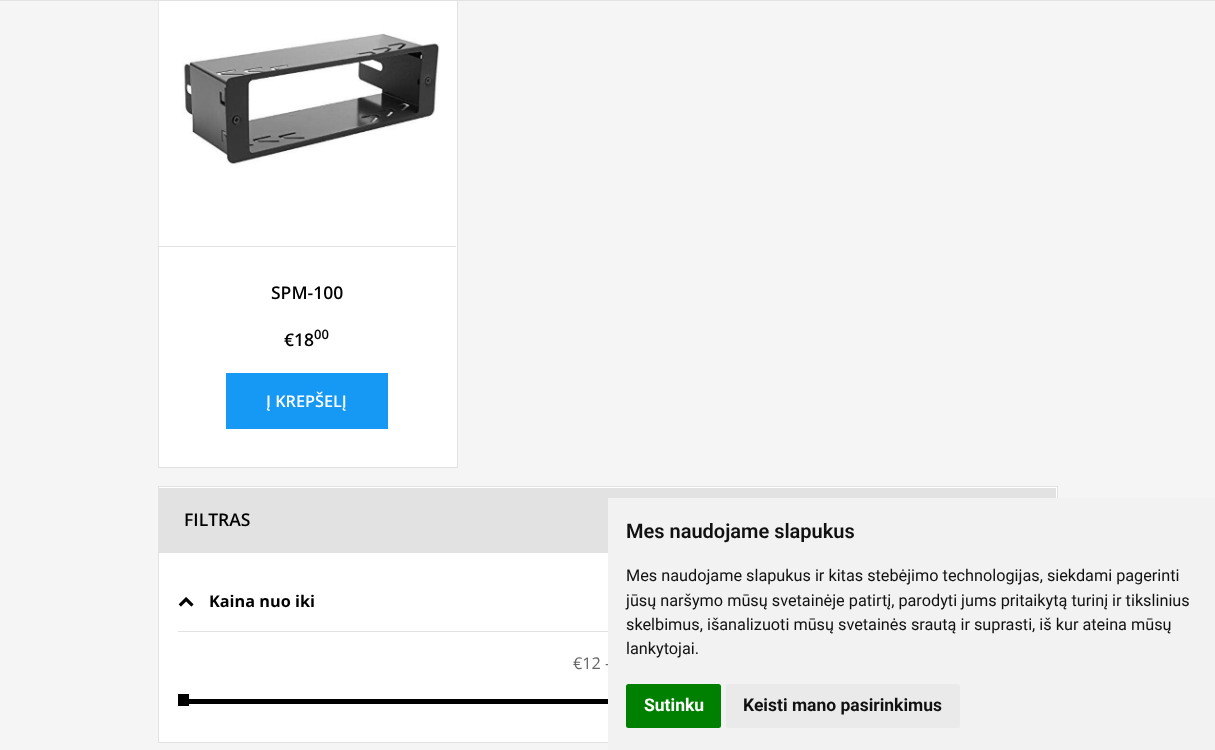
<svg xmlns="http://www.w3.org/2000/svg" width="1215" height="750">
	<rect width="100%" height="100%" fill="#F5F5F5" />
	<rect x="159" y="1" width="298" height="466" fill="#FFFFFF" />
	<rect x="158.5" y="-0.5" width="299" height="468" fill="none" stroke="#E2E2E2" />
	<rect x="0" y="0" width="1215" height="1" fill="#E2E2E2" />
	<rect x="159" y="246" width="297" height="1" fill="#E2E2E2" />
	<image x="158" y="1" width="282" height="245" href="assets/img1.png" />
	<g font-family="Open Sans" font-size="17.5" font-weight="600" fill="#000000">
		<text x="271" y="299">SPM-100</text>
		<text x="284" y="346">€18</text>
	</g>
	<text x="314" y="339" font-family="Open Sans" font-size="13" font-weight="600" fill="#000000">00</text>
	<rect x="226" y="373" width="162" height="56" fill="#1698F5" />
	<text x="266" y="407" font-family="Open Sans" font-size="16.25" font-weight="600" fill="#FFFFFF">Į KREPŠELĮ</text>
	<rect x="158.5" y="486.5" width="899" height="256" fill="#FFFFFF" stroke="#E2E2E2" />
	<rect x="159" y="488" width="897" height="65" fill="#E2E2E2" />
	<text x="184" y="526" font-family="Open Sans" font-size="17.5" font-weight="600" fill="#000000">FILTRAS</text>
	<rect x="178" y="631" width="430" height="1" fill="#E2E2E2" />
	<text x="178" y="609" font-family="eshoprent" font-size="16.25" fill="#000000">1</text>
	<text x="209" y="607" font-family="Open Sans" font-size="16.25" font-weight="700" fill="#000000">Kaina nuo iki</text>
	<text x="573" y="669" font-family="Open Sans" font-size="16.25" fill="#666666">€12 -</text>
	<rect x="178" y="694" width="11" height="12" fill="#000000" />
	<rect x="189" y="699" width="419" height="5" fill="#000000" />
	<rect x="608" y="498" width="607" height="252" fill="#F2F2F2" />
	<text x="626" y="538" font-family="Roboto" font-size="20" font-weight="600" fill="#111111">Mes naudojame slapukus</text>
	<g font-family="Roboto" font-size="16.25" fill="#111111">
		<text x="626" y="581">Mes naudojame slapukus ir kitas stebėjimo technologijas, siekdami pagerinti</text>
		<text x="626" y="606">jūsų naršymo mūsų svetainėje patirtį, parodyti jums pritaikytą turinį ir tikslinius</text>
		<text x="626" y="630">skelbimus, išanalizuoti mūsų svetainės srautą ir suprasti, iš kur ateina mūsų</text>
		<text x="626" y="654">lankytojai.</text>
	</g>
	<rect x="626" y="684" width="95" height="44" rx="2.5" fill="#008000" />
	<text x="644" y="711" font-family="Roboto" font-size="17.5" font-weight="700" fill="#FFFFFF">Sutinku</text>
	<rect x="726" y="684" width="234" height="44" rx="2.5" fill="#EAEAEA" />
	<text x="743" y="711" font-family="Roboto" font-size="17.5" font-weight="700" fill="#111111">Keisti mano pasirinkimus</text>
</svg>
